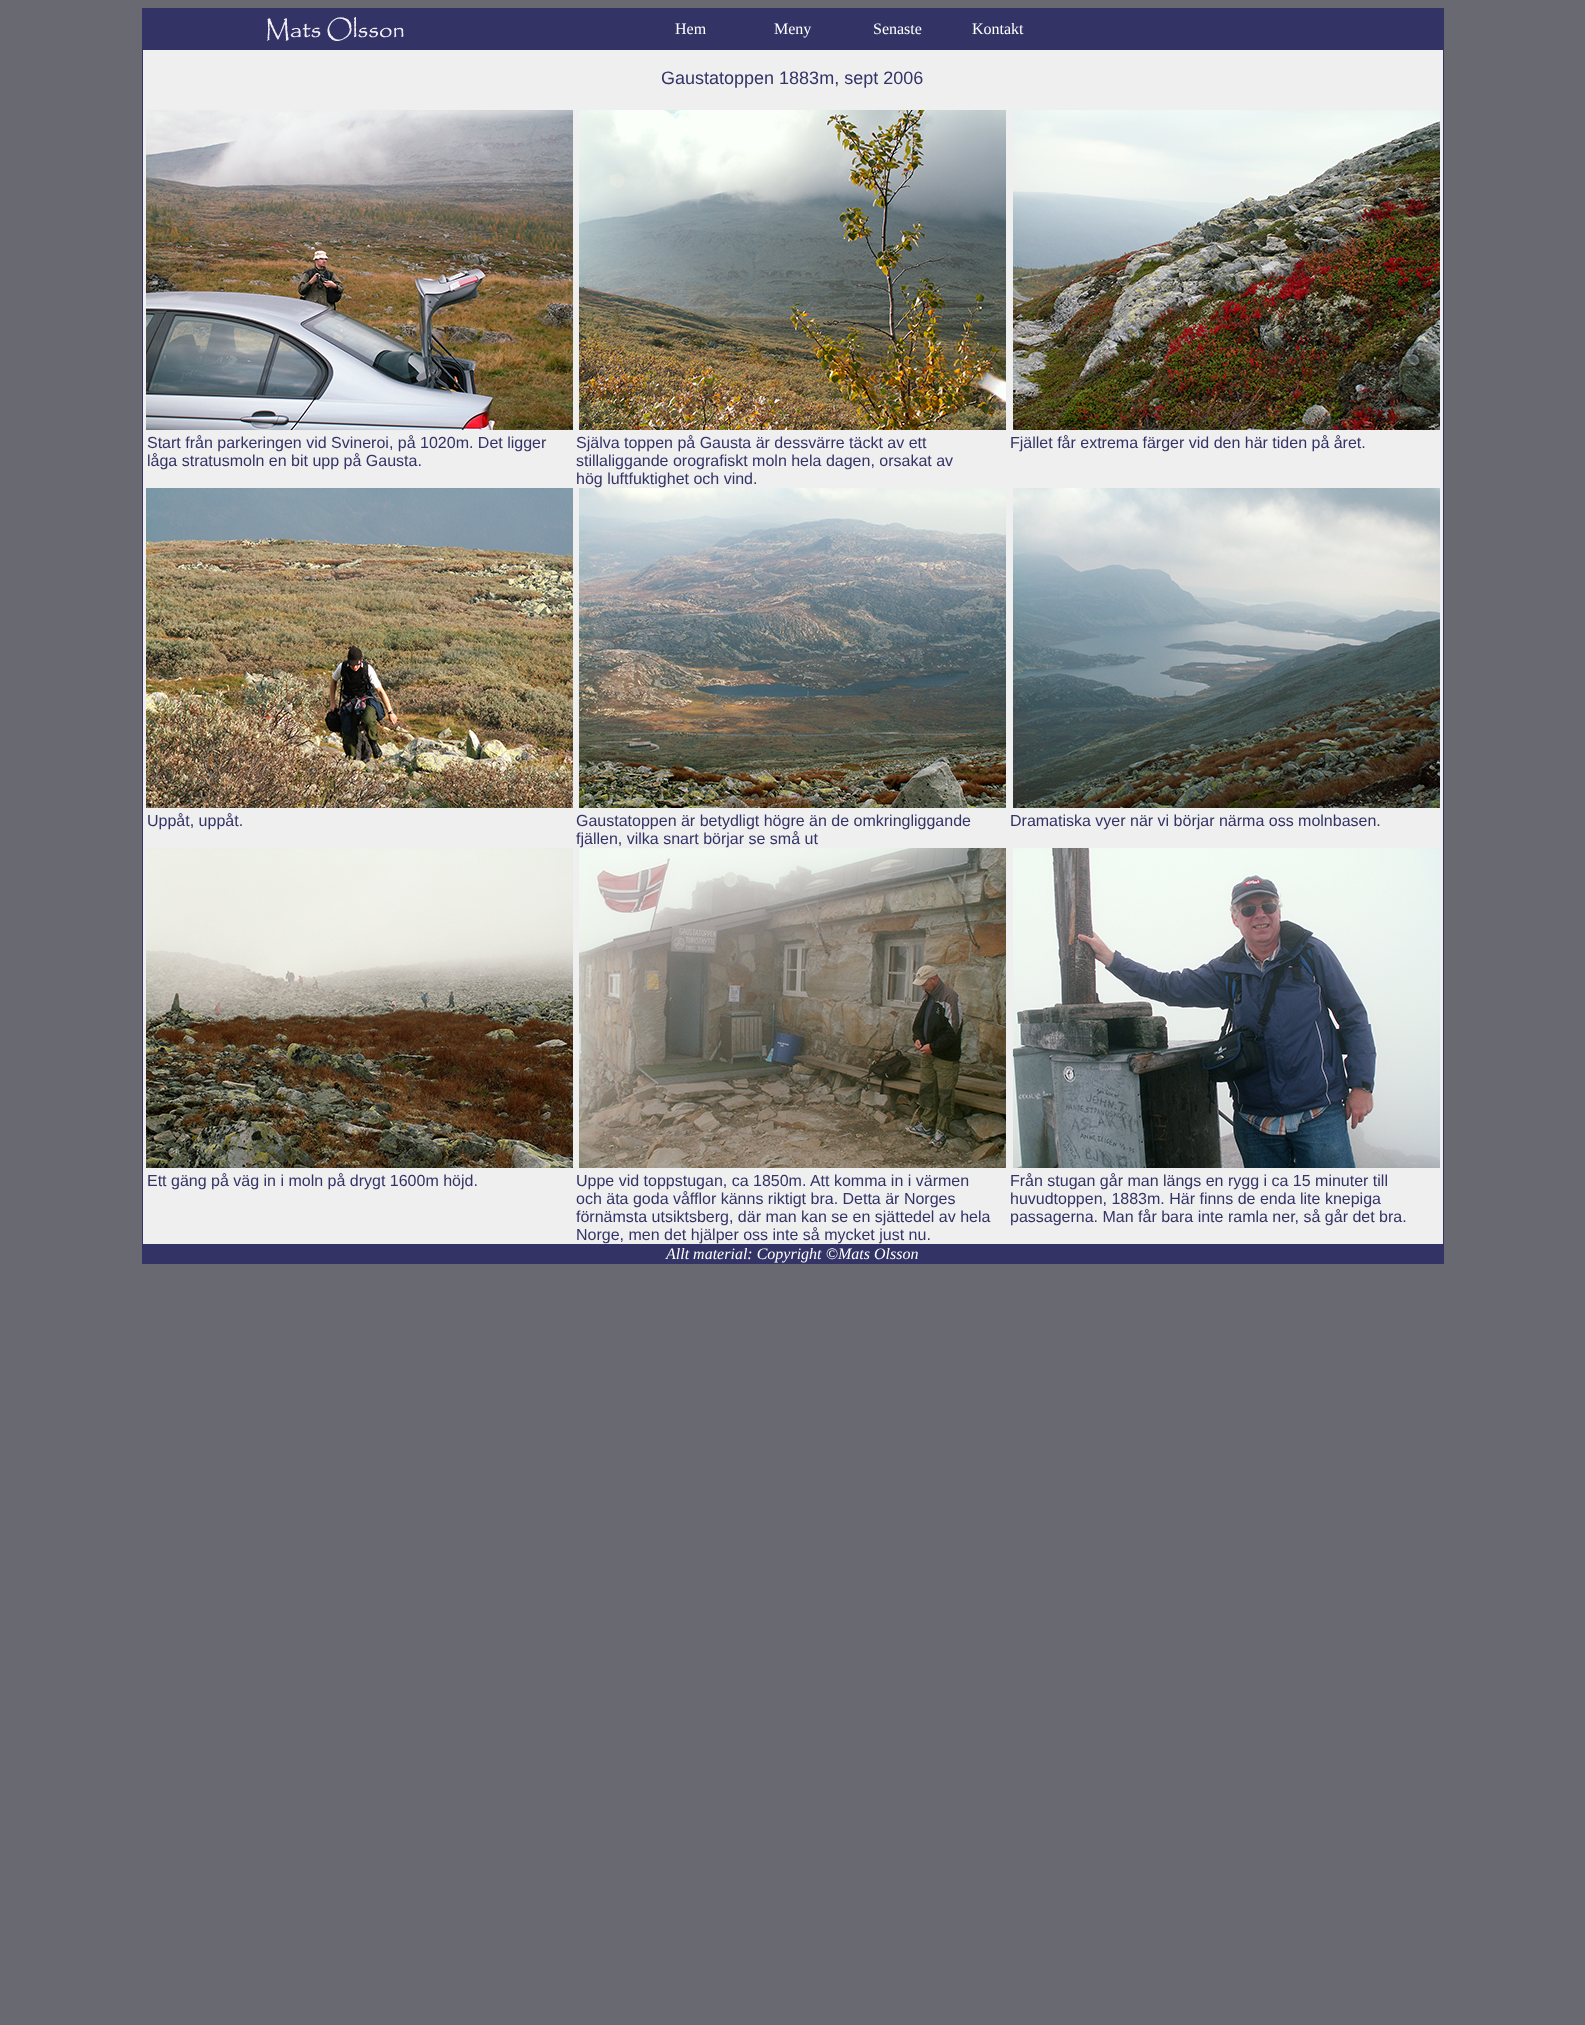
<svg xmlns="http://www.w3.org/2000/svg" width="1585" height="2025">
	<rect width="100%" height="100%" fill="#696971" />
	<rect x="142" y="8" width="1302" height="1256" fill="#333366" />
	<image x="266" y="17" width="138" height="25" href="assets/img1.png" />
	<g font-family="Liberation Serif" font-size="16" fill="#FFFFFF">
		<text x="675" y="34">Hem</text>
		<text x="774" y="34">Meny</text>
		<text x="873" y="34">Senaste</text>
		<text x="972" y="34">Kontakt</text>
	</g>
	<rect x="143" y="50" width="1300" height="1194" fill="#EFEFEF" />
	<text x="661" y="84" font-family="Liberation Sans" font-size="18" fill="#333366">Gaustatoppen 1883m, sept 2006</text>
	<image x="146" y="110" width="427" height="320" href="assets/img2.png" />
	<image x="579" y="110" width="427" height="320" href="assets/img3.png" />
	<image x="1013" y="110" width="427" height="320" href="assets/img4.png" />
	<g font-family="Liberation Sans" font-size="16" fill="#333366">
		<text x="147" y="448">Start från parkeringen vid Svineroi, på 1020m. Det ligger</text>
		<text x="147" y="466">låga stratusmoln en bit upp på Gausta.</text>
		<text x="576" y="448">Själva toppen på Gausta är dessvärre täckt av ett</text>
		<text x="576" y="466">stillaliggande orografiskt moln hela dagen, orsakat av</text>
		<text x="576" y="484">hög luftfuktighet och vind.</text>
		<text x="1010" y="448">Fjället får extrema färger vid den här tiden på året.</text>
	</g>
	<image x="146" y="488" width="427" height="320" href="assets/img5.png" />
	<image x="579" y="488" width="427" height="320" href="assets/img6.png" />
	<image x="1013" y="488" width="427" height="320" href="assets/img7.png" />
	<g font-family="Liberation Sans" font-size="16" fill="#333366">
		<text x="147" y="826">Uppåt, uppåt.</text>
		<text x="576" y="826">Gaustatoppen är betydligt högre än de omkringliggande</text>
		<text x="576" y="844">fjällen, vilka snart börjar se små ut</text>
		<text x="1010" y="826">Dramatiska vyer när vi börjar närma oss molnbasen.</text>
	</g>
	<image x="146" y="848" width="427" height="320" href="assets/img8.png" />
	<image x="579" y="848" width="427" height="320" href="assets/img9.png" />
	<image x="1013" y="848" width="427" height="320" href="assets/img10.png" />
	<g font-family="Liberation Sans" font-size="16" fill="#333366">
		<text x="147" y="1186">Ett gäng på väg in i moln på drygt 1600m höjd.</text>
		<text x="576" y="1186">Uppe vid toppstugan, ca 1850m. Att komma in i värmen</text>
		<text x="576" y="1204">och äta goda våfflor känns riktigt bra. Detta är Norges</text>
		<text x="576" y="1222">förnämsta utsiktsberg, där man kan se en sjättedel av hela</text>
		<text x="576" y="1240">Norge, men det hjälper oss inte så mycket just nu.</text>
		<text x="1010" y="1186">Från stugan går man längs en rygg i ca 15 minuter till</text>
		<text x="1010" y="1204">huvudtoppen, 1883m. Här finns de enda lite knepiga</text>
		<text x="1010" y="1222">passagerna. Man får bara inte ramla ner, så går det bra.</text>
	</g>
	<text x="666" y="1259" font-family="Liberation Serif" font-size="16" font-style="italic" fill="#FFFFFF">Allt material: Copyright</text>
	<text x="826" y="1259" font-family="Liberation Serif" font-size="16" fill="#FFFFFF">©</text>
	<text x="838" y="1259" font-family="Liberation Serif" font-size="16" font-style="italic" fill="#FFFFFF">Mats Olsson</text>
</svg>
